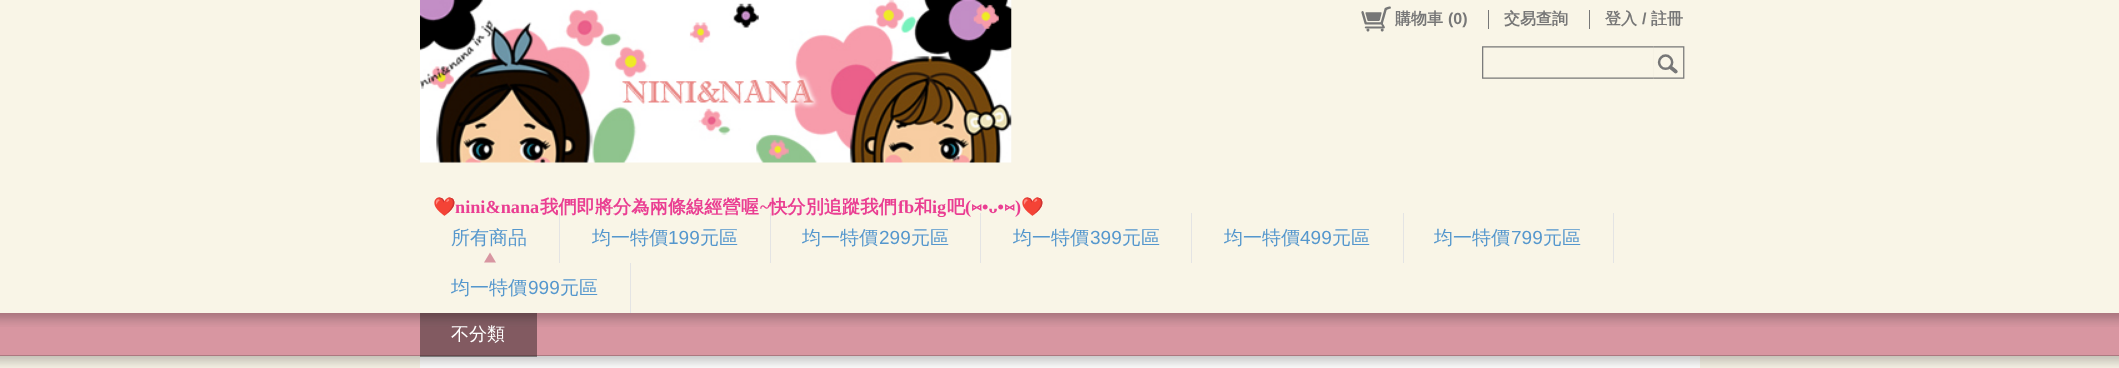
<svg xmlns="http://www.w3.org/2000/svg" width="2119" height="368">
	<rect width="100%" height="100%" fill="#F9F5E7" />
	<image x="420" y="0" width="592" height="163" href="assets/img1.png" />
	<image x="1361" y="6" width="30" height="26" href="assets/img2.png" />
	<text x="1395" y="24" font-family="WenQuanYi Zen Hei" font-size="16" font-weight="700" fill="#777777">購物車</text>
	<text x="1448" y="24" font-family="Liberation Sans" font-size="16" font-weight="700" fill="#777777">(0)</text>
	<rect x="1488" y="10" width="1" height="19" fill="#777777" />
	<text x="1504" y="24" font-family="WenQuanYi Zen Hei" font-size="16" font-weight="700" fill="#777777">交易查詢</text>
	<rect x="1589" y="10" width="1" height="19" fill="#777777" />
	<text x="1605" y="24" font-family="WenQuanYi Zen Hei" font-size="16" font-weight="700" fill="#777777">登入</text>
	<text x="1642" y="24" font-family="Liberation Sans" font-size="16" font-weight="700" fill="#777777">/</text>
	<text x="1651" y="24" font-family="WenQuanYi Zen Hei" font-size="16" font-weight="700" fill="#777777">註冊</text>
	<image x="1653" y="46" width="32" height="33" href="assets/img4.png" />
	<image x="1482" y="46" width="172" height="33" href="assets/img3.png" />
	<text x="433" y="213" font-family="Noto Color Emoji" font-size="18.25" font-weight="700" fill="#EA3E92">❤️</text>
	<text x="455" y="213" font-family="Liberation Serif" font-size="18.25" font-weight="700" fill="#EA3E92">nini&amp;nana</text>
	<rect x="559" y="213" width="1" height="50" fill="#E4E4E4" />
	<text x="540" y="213" font-family="WenQuanYi Zen Hei" font-size="18.25" font-weight="700" fill="#EA3E92">我們即將分為兩條線經營喔</text>
	<text x="760" y="213" font-family="Liberation Serif" font-size="18.25" font-weight="700" fill="#EA3E92">~</text>
	<rect x="770" y="213" width="1" height="50" fill="#E4E4E4" />
	<text x="769" y="213" font-family="WenQuanYi Zen Hei" font-size="18.25" font-weight="700" fill="#EA3E92">快分別追蹤我們</text>
	<text x="898" y="213" font-family="Liberation Serif" font-size="18.25" font-weight="700" fill="#EA3E92">fb</text>
	<text x="914" y="213" font-family="WenQuanYi Zen Hei" font-size="18.25" font-weight="700" fill="#EA3E92">和</text>
	<text x="932" y="213" font-family="Liberation Serif" font-size="18.25" font-weight="700" fill="#EA3E92">ig</text>
	<text x="947" y="213" font-family="WenQuanYi Zen Hei" font-size="18.25" font-weight="700" fill="#EA3E92">吧</text>
	<text x="965" y="213" font-family="Liberation Serif" font-size="18.25" font-weight="700" fill="#EA3E92">(</text>
	<text x="971" y="213" font-family="FreeMono" font-size="18.25" font-weight="700" fill="#EA3E92">⑅</text>
	<text x="982" y="213" font-family="Liberation Serif" font-size="18.25" font-weight="700" fill="#EA3E92">•ᴗ•</text>
	<text x="1004" y="213" font-family="FreeMono" font-size="18.25" font-weight="700" fill="#EA3E92">⑅</text>
	<text x="1015" y="213" font-family="Liberation Serif" font-size="18.25" font-weight="700" fill="#EA3E92">)</text>
	<text x="1021" y="213" font-family="Noto Color Emoji" font-size="18.25" font-weight="700" fill="#EA3E92">❤️</text>
	<text x="451" y="244" font-family="WenQuanYi Zen Hei" font-size="19" font-weight="500" fill="#5597CD">所有商品</text>
	<path d="M496 262.5H484L490 252.5Z" fill="#D896A1" />
	<text x="592" y="244" font-family="WenQuanYi Zen Hei" font-size="19" font-weight="500" fill="#5597CD">均一特價</text>
	<text x="668" y="244" font-family="Liberation Sans" font-size="19" fill="#5597CD">199</text>
	<text x="700" y="244" font-family="WenQuanYi Zen Hei" font-size="19" font-weight="500" fill="#5597CD">元區</text>
	<rect x="980" y="213" width="1" height="50" fill="#E4E4E4" />
	<text x="802" y="244" font-family="WenQuanYi Zen Hei" font-size="19" font-weight="500" fill="#5597CD">均一特價</text>
	<text x="879" y="244" font-family="Liberation Sans" font-size="19" fill="#5597CD">299</text>
	<text x="911" y="244" font-family="WenQuanYi Zen Hei" font-size="19" font-weight="500" fill="#5597CD">元區</text>
	<rect x="1191" y="213" width="1" height="50" fill="#E4E4E4" />
	<text x="1013" y="244" font-family="WenQuanYi Zen Hei" font-size="19" font-weight="500" fill="#5597CD">均一特價</text>
	<text x="1090" y="244" font-family="Liberation Sans" font-size="19" fill="#5597CD">399</text>
	<text x="1122" y="244" font-family="WenQuanYi Zen Hei" font-size="19" font-weight="500" fill="#5597CD">元區</text>
	<rect x="1403" y="213" width="1" height="50" fill="#E4E4E4" />
	<text x="1224" y="244" font-family="WenQuanYi Zen Hei" font-size="19" font-weight="500" fill="#5597CD">均一特價</text>
	<text x="1300" y="244" font-family="Liberation Sans" font-size="19" fill="#5597CD">499</text>
	<text x="1332" y="244" font-family="WenQuanYi Zen Hei" font-size="19" font-weight="500" fill="#5597CD">元區</text>
	<rect x="1613" y="213" width="1" height="50" fill="#E4E4E4" />
	<text x="1434" y="244" font-family="WenQuanYi Zen Hei" font-size="19" font-weight="500" fill="#5597CD">均一特價</text>
	<text x="1511" y="244" font-family="Liberation Sans" font-size="19" fill="#5597CD">799</text>
	<text x="1543" y="244" font-family="WenQuanYi Zen Hei" font-size="19" font-weight="500" fill="#5597CD">元區</text>
	<rect x="630" y="263" width="1" height="50" fill="#E4E4E4" />
	<text x="451" y="294" font-family="WenQuanYi Zen Hei" font-size="19" font-weight="500" fill="#5597CD">均一特價</text>
	<text x="528" y="294" font-family="Liberation Sans" font-size="19" fill="#5597CD">999</text>
	<text x="560" y="294" font-family="WenQuanYi Zen Hei" font-size="19" font-weight="500" fill="#5597CD">元區</text>
	<rect x="0" y="313" width="2119" height="43" fill="#D896A1" />
	<rect x="420" y="313" width="117" height="43" fill="#825A61" />
	<text x="451" y="340" font-family="WenQuanYi Zen Hei" font-size="18" font-weight="500" fill="#FFFFFF">不分類</text>
	<image x="0" y="313" width="2119" height="14" href="assets/img5.png" />
	<rect x="420" y="356" width="1280" height="12" fill="#FFFFFF" />
	<rect x="420" y="356" width="117" height="1" fill="#999999" />
	<image x="0" y="355" width="2119" height="13" href="assets/img6.png" />
</svg>
